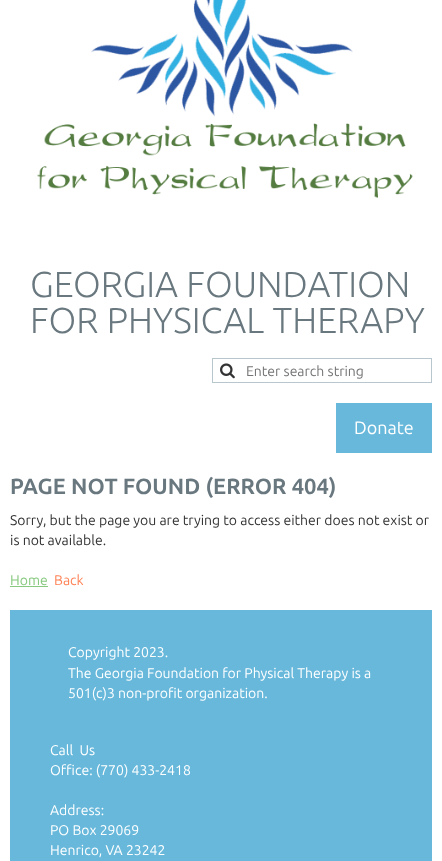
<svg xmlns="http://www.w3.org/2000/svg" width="442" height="861">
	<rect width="100%" height="100%" fill="#FFFFFF" />
	<image x="37" y="0" width="376" height="198" href="assets/img1.png" />
	<g font-family="Ubuntu" font-size="36" font-weight="300" fill="#69777F">
		<text x="30" y="297">GEORGIA FOUNDATION</text>
		<text x="30" y="333">FOR PHYSICAL THERAPY</text>
	</g>
	<rect x="212.5" y="358.5" width="219" height="24" fill="none" stroke="#B8C6CD" />
	<image x="220" y="363" width="15" height="16" href="assets/img2.png" />
	<text x="246" y="376" font-family="Ubuntu" font-size="14" fill="#757575">Enter search string</text>
	<rect x="336" y="403" width="96" height="50" fill="#67B8DB" />
	<text x="354" y="434" font-family="Ubuntu" font-size="18" fill="#FFFFFF">Donate</text>
	<text x="10" y="494" font-family="Ubuntu" font-size="22" font-weight="700" fill="#69777F">PAGE NOT FOUND (ERROR 404)</text>
	<g font-family="Ubuntu" font-size="14" fill="#333333">
		<text x="10" y="525">Sorry, but the page you are trying to access either does not exist or</text>
		<text x="10" y="545">is not available.</text>
	</g>
	<text x="10" y="585" font-family="Ubuntu" font-size="14" fill="#87C97F">Home</text>
	<rect x="10" y="586" width="38" height="1" fill="#87C97F" />
	<text x="54" y="585" font-family="Ubuntu" font-size="14" fill="#FF8357">Back</text>
	<rect x="10" y="610" width="422" height="251" fill="#67B8DB" />
	<g font-family="Ubuntu" font-size="14" fill="#FFFFFF">
		<text x="68" y="657">Copyright 2023.</text>
		<text x="68" y="678">The Georgia Foundation for Physical Therapy is a</text>
		<text x="68" y="698">501(c)3 non-profit organization.</text>
		<text x="50" y="755" xml:space="preserve">Call  Us</text>
		<text x="50" y="775">Office: (770) 433-2418</text>
		<text x="50" y="815">Address:</text>
		<text x="50" y="835">PO Box 29069</text>
		<text x="50" y="855">Henrico, VA 23242</text>
	</g>
</svg>
